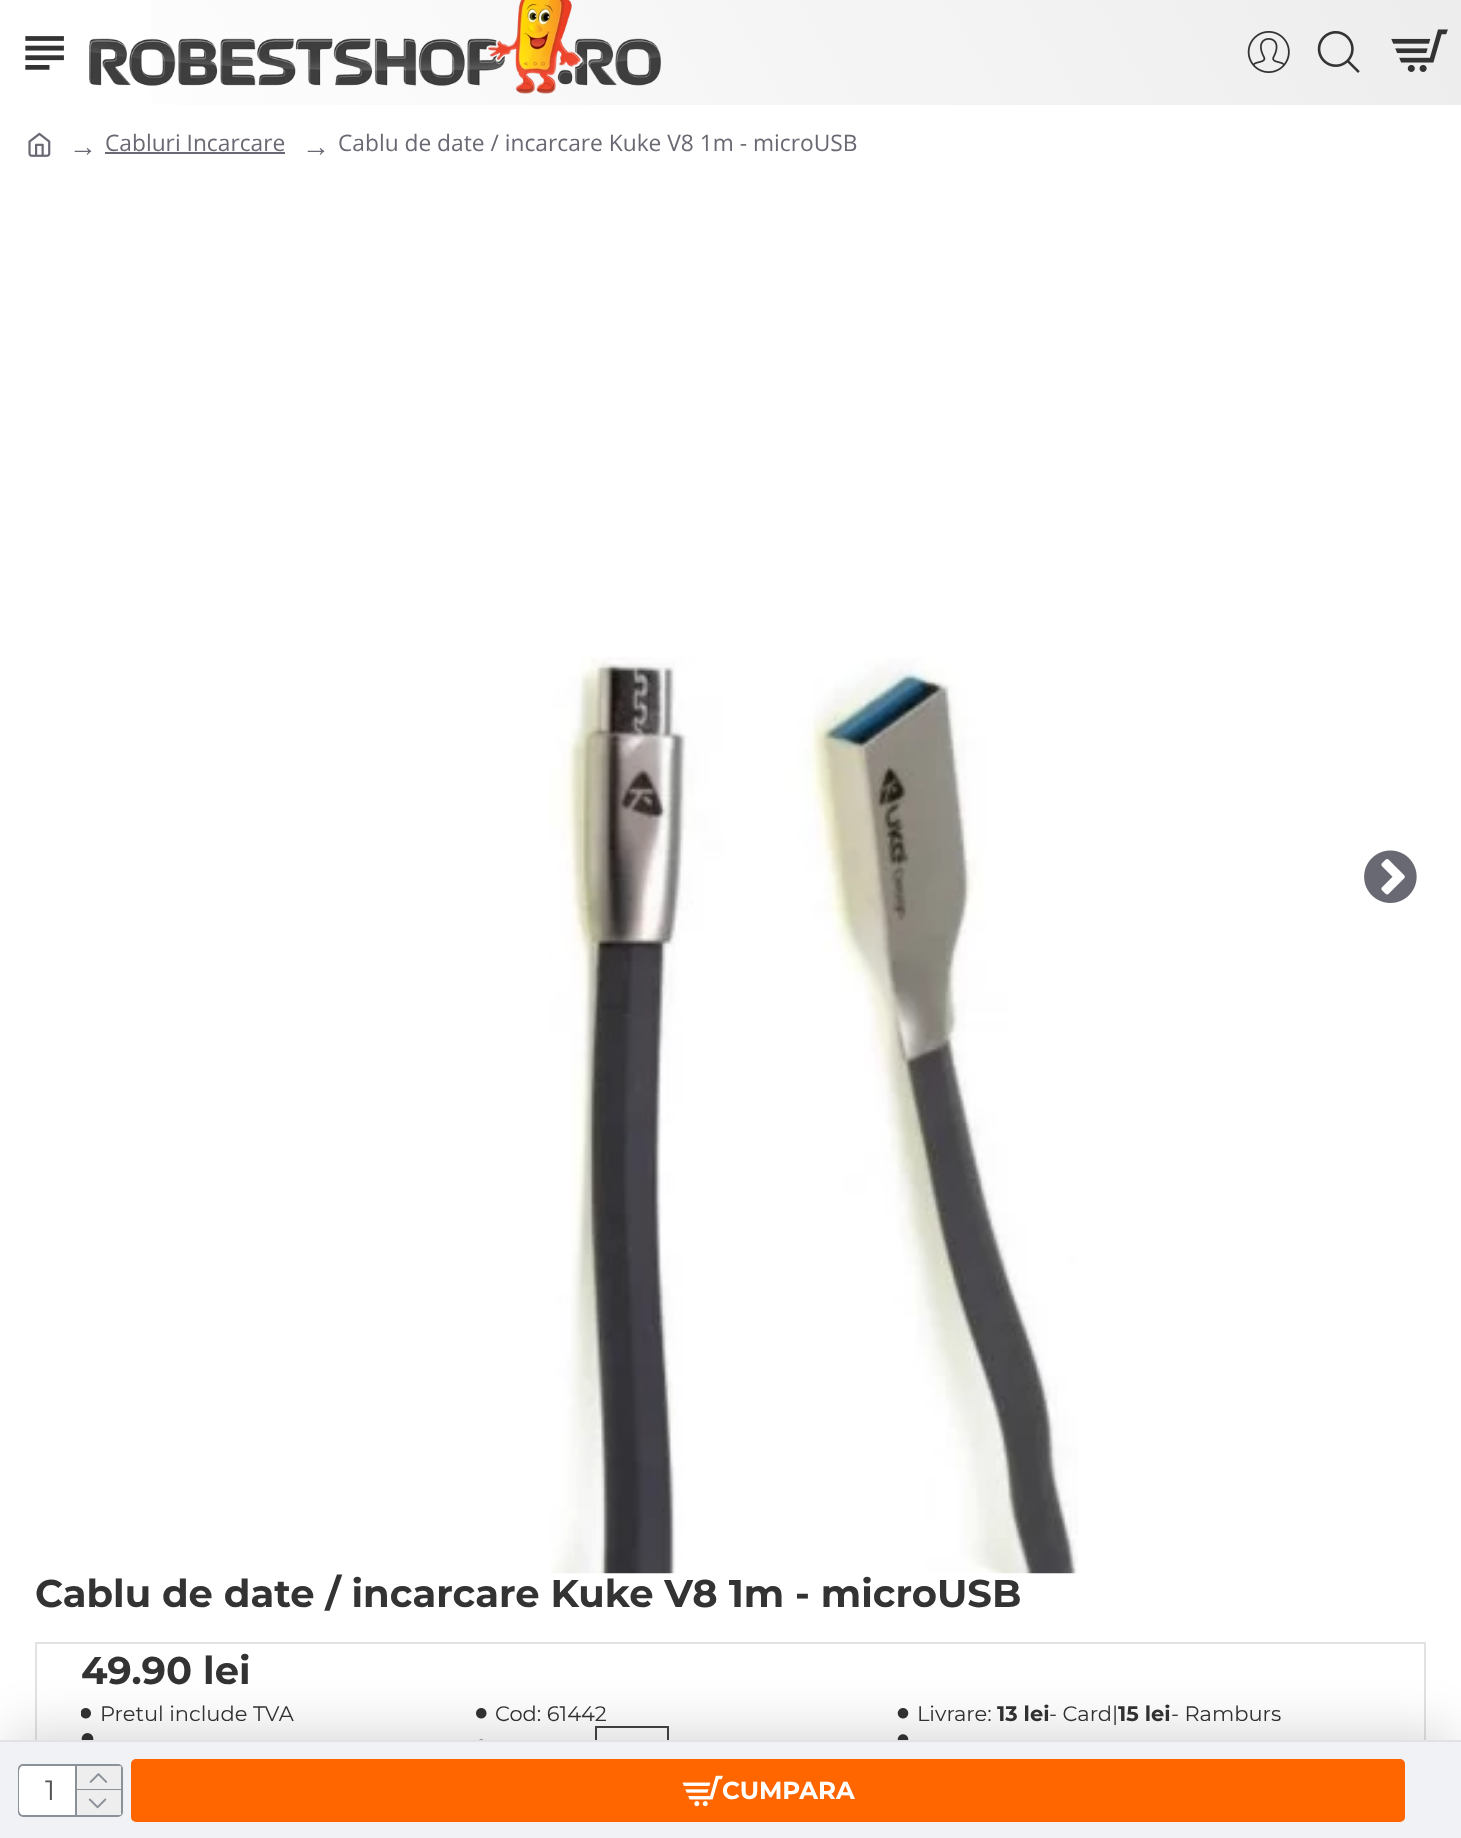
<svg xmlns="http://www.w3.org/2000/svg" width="1461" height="1838">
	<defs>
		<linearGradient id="g1" gradientUnits="userSpaceOnUse" x1="160" y1="382" x2="1301" y2="-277"><stop offset="0" stop-color="#FFFFFF" /><stop offset="1" stop-color="#EDEDED" /></linearGradient>
	</defs>
	<rect width="100%" height="100%" fill="#FFFFFF" />
	<rect x="151" y="0" width="1310" height="105" fill="url(#g1)" />
	<image x="89" y="0" width="572" height="94" href="assets/img1.png" />
	<image x="25" y="36" width="39" height="34" href="assets/img2.png" />
	<image x="1247" y="31" width="43" height="42" href="assets/img3.png" />
	<image x="1317" y="31" width="43" height="42" href="assets/img4.png" />
	<image x="1391" y="29" width="57" height="43" href="assets/img5.png" />
	<image x="28" y="132" width="23" height="25" href="assets/img6.png" />
	<text x="69" y="156" font-family="Liberation Serif" font-size="28" fill="#696973">→</text>
	<text x="105" y="151" font-family="Open Sans" font-size="22.75" fill="#696973">Cabluri Incarcare</text>
	<rect x="105" y="152" width="180" height="2" fill="#696973" />
	<text x="302" y="156" font-family="Liberation Serif" font-size="28" fill="#696973">→</text>
	<text x="338" y="151" font-family="Open Sans" font-size="22.75" fill="#696973">Cablu de date / incarcare Kuke V8 1m - microUSB</text>
	<image x="550" y="657" width="528" height="917" href="assets/img7.png" />
	<image x="1364" y="850" width="53" height="53" href="assets/img8.png" />
	<text x="35" y="1607" font-family="Montserrat" font-size="38.5" font-weight="700" fill="#333333">Cablu de date / incarcare Kuke V8 1m - microUSB</text>
	<rect x="36" y="1643" width="1389" height="146" fill="none" stroke="#E2E2E2" stroke-width="2" />
	<text x="81" y="1684" font-family="Montserrat" font-size="38.5" font-weight="700" fill="#333333">49.90 lei</text>
	<image x="81" y="1708" width="10" height="11" href="assets/img9.png" />
	<text x="100" y="1721" font-family="Montserrat" font-size="21" fill="#333333">Pretul include TVA</text>
	<image x="476" y="1708" width="11" height="11" href="assets/img10.png" />
	<text x="495" y="1721" font-family="Montserrat" font-size="21" fill="#333333">Cod: 61442</text>
	<image x="897" y="1708" width="12" height="11" href="assets/img11.png" />
	<text x="917" y="1721" font-family="Montserrat" font-size="21" fill="#333333">Livrare:</text>
	<text x="997" y="1721" font-family="Montserrat" font-size="21" font-weight="700" fill="#333333">13 lei</text>
	<text x="1049" y="1721" font-family="Montserrat" font-size="21" fill="#333333">- Card|</text>
	<text x="1118" y="1721" font-family="Montserrat" font-size="21" font-weight="700" fill="#333333">15 lei</text>
	<text x="1171" y="1721" font-family="Montserrat" font-size="21" fill="#333333">- Ramburs</text>
	<image x="897" y="1734" width="12" height="6" href="assets/img12.png" />
	<image x="81" y="1733" width="13" height="7" href="assets/img13.png" />
	<image x="479" y="1739" width="5" height="1" href="assets/img14.png" />
	<rect x="596" y="1727" width="72" height="31" fill="none" stroke="#444444" stroke-width="2" />
	<rect x="9" y="1731" width="1444" height="82" fill="#000000" fill-opacity="0.15" filter="blur(26px)" />
	<rect x="0" y="1742" width="1461" height="96" fill="#F0F2F5" />
	<rect x="0" y="1740" width="1461" height="2" fill="#E2E2E2" />
	<rect x="19" y="1765" width="103" height="51" rx="4" fill="none" stroke="#8B9198" stroke-width="2" />
	<rect x="19" y="1766" width="102" height="49" rx="5" fill="#FFFFFF" />
	<text x="45" y="1800" font-family="Montserrat" font-size="28" fill="#555555">1</text>
	<rect x="75" y="1766" width="2" height="49" fill="#8B9198" />
	<rect x="77" y="1766" width="44" height="23" fill="#EEEEEE" />
	<rect x="77" y="1789" width="44" height="1" fill="#8B9198" />
	<image x="89" y="1773" width="19" height="10" href="assets/img15.png" />
	<rect x="77" y="1790" width="44" height="25" fill="#EEEEEE" />
	<image x="88" y="1798" width="19" height="11" href="assets/img16.png" />
	<rect x="131" y="1759" width="1274" height="63" rx="5" fill="#FF6600" />
	<image x="682" y="1775" width="41" height="32" href="assets/img17.png" />
	<text x="722" y="1799" font-family="Montserrat" font-size="24.5" font-weight="700" fill="#FFFFFF">CUMPARA</text>
</svg>
